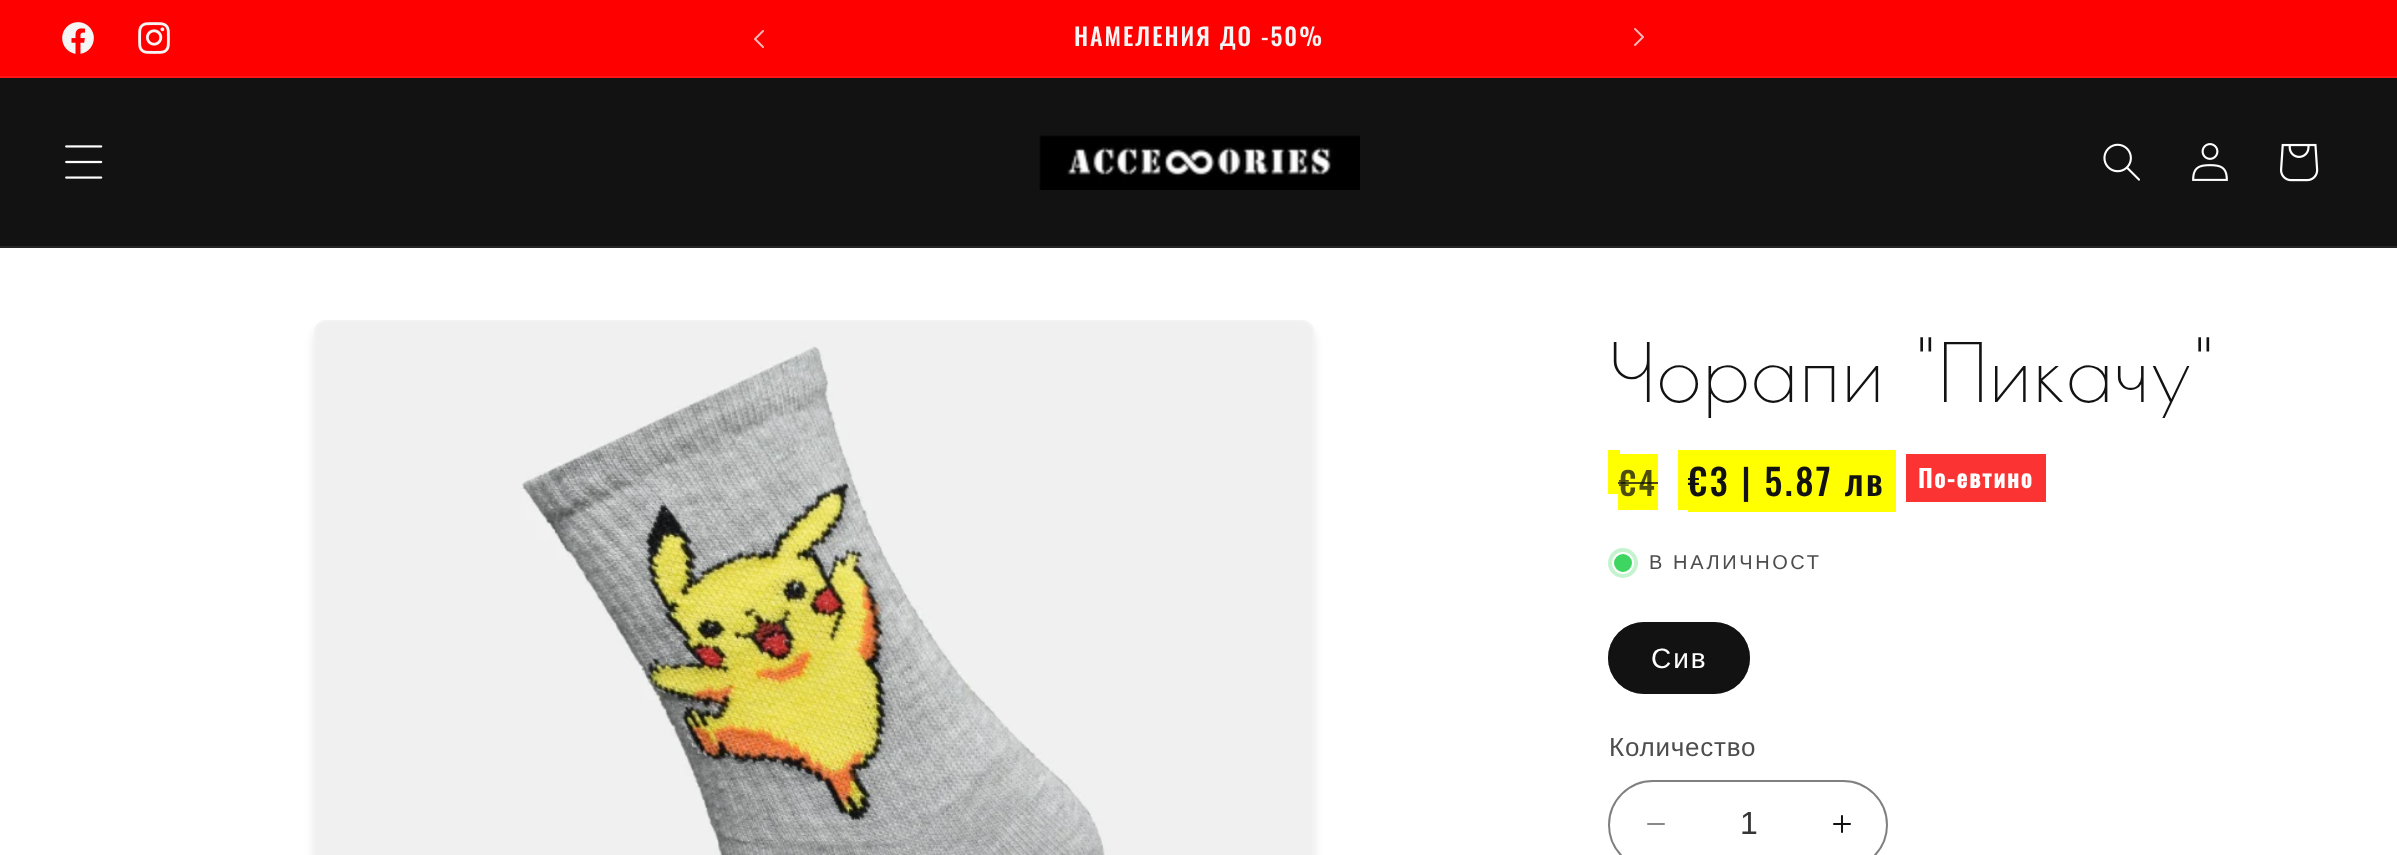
<svg xmlns="http://www.w3.org/2000/svg" width="2397" height="855">
	<rect width="100%" height="100%" fill="#FFFFFF" />
	<rect x="0" y="0" width="2397" height="76" fill="#FF0000" />
	<rect x="0" y="76" width="2397" height="2" fill="#FE1414" />
	<image x="62" y="22" width="32" height="32" href="assets/img1.png" />
	<image x="138" y="22" width="32" height="32" href="assets/img2.png" />
	<image x="754" y="30" width="10" height="18" href="assets/img3.png" />
	<text x="1074" y="46" font-family="Oswald" font-size="24" font-weight="500" letter-spacing="2" fill="#F5F5F5">НАМЕЛЕНИЯ ДО -50%</text>
	<image x="1634" y="28" width="10" height="18" href="assets/img4.png" />
	<rect x="0" y="78" width="2397" height="168" fill="#121212" />
	<rect x="0" y="246" width="2397" height="2" fill="#252525" />
	<image x="65" y="145" width="38" height="34" href="assets/img5.png" />
	<image x="1039" y="135" width="321" height="55" href="assets/img6.png" />
	<image x="2103" y="143" width="37" height="38" href="assets/img7.png" />
	<image x="2192" y="143" width="36" height="38" href="assets/img8.png" />
	<image x="2280" y="143" width="39" height="39" href="assets/img9.png" />
	<rect x="314" y="328" width="1000" height="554" rx="12" fill="#121212" fill-opacity="0.1" filter="blur(5px)" />
	<rect x="315" y="321" width="998" height="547" rx="11" fill="none" stroke="#F3F3F3" stroke-width="2" />
	<image x="316" y="322" width="996" height="533" href="assets/img10.png" />
	<text x="1609" y="402" font-family="Poiret One" font-size="80" letter-spacing="1.25" fill="#121212">Чорапи "Пикачу"</text>
	<rect x="1608" y="450" width="12" height="44" fill="#FFFF00" />
	<rect x="1618" y="454" width="40" height="56" fill="#FFFF00" />
	<rect x="1678" y="450" width="10" height="60" fill="#FFFF00" />
	<rect x="1688" y="450" width="208" height="62" fill="#FFFF00" />
	<text x="1619" y="496" font-family="Oswald" font-size="32" font-weight="500" letter-spacing="2.6" fill="#4D4D0E">€4</text>
	<rect x="1618" y="482" width="40" height="2" fill="#121212" fill-opacity="0.75" />
	<text x="1688" y="496" font-family="Oswald" font-size="36" font-weight="500" letter-spacing="2.6" fill="#121212">€3 | 5.87 лв</text>
	<rect x="1906" y="454" width="140" height="48" fill="#FB3333" />
	<text x="1918" y="488" font-family="Oswald" font-size="24" font-weight="700" letter-spacing="2" fill="#FFFFFF">По-евтино</text>
	<circle cx="1623" cy="563" r="15" fill="#C5F3CF" />
	<circle cx="1623" cy="563" r="10" fill="#3ED660" stroke="#FFFFFF" stroke-width="2" />
	<text x="1649" y="569" font-family="Liberation Sans" font-size="20" letter-spacing="2.6" fill="#4D4D4D">В НАЛИЧНОСТ</text>
	<rect x="1608" y="622" width="142" height="72" rx="36" fill="#121212" />
	<rect x="1609" y="623" width="140" height="70" rx="35" fill="none" stroke="#121212" stroke-opacity="0.55" stroke-width="2" />
	<text x="1651" y="668" font-family="Liberation Sans" font-size="28" letter-spacing="2" fill="#FFFFFF">Сив</text>
	<text x="1609" y="756" font-family="Liberation Sans" font-size="26" letter-spacing="0.75" fill="#4D4D4D">Количество</text>
	<rect x="1609" y="781" width="278" height="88" rx="44" fill="none" stroke="#808080" stroke-width="2" />
	<image x="1647" y="823" width="18" height="2" href="assets/img11.png" />
	<text x="1740" y="834" font-family="Liberation Sans" font-size="32" fill="#363636">1</text>
	<image x="1833" y="815" width="18" height="18" href="assets/img12.png" />
</svg>
